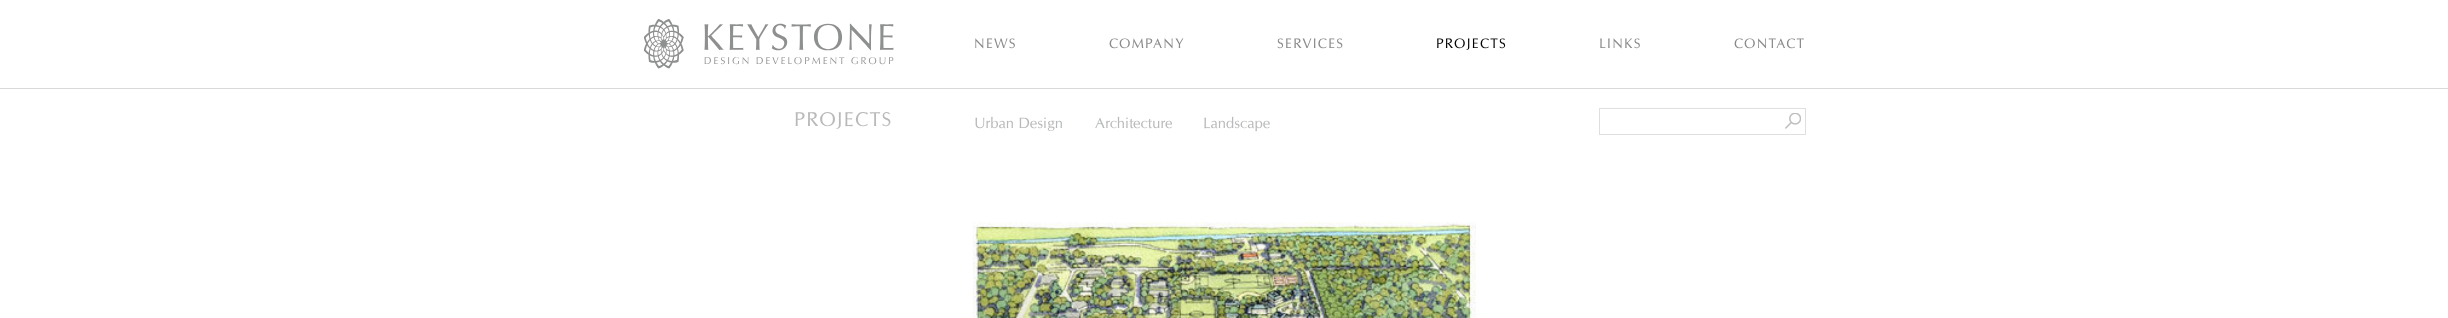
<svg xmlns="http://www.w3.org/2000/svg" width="2448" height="318">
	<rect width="100%" height="100%" fill="#FFFFFF" />
	<rect x="0" y="88" width="2448" height="1" fill="#D8D9DA" />
	<image x="644" y="19" width="250" height="50" href="assets/img1.png" />
	<g font-family="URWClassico" font-size="13.75" letter-spacing="1.25" fill="#898989">
		<text x="974" y="48">NEWS</text>
		<text x="1109" y="48">COMPANY</text>
		<text x="1277" y="48">SERVICES</text>
	</g>
	<text x="1436" y="48" font-family="URWClassico" font-size="13.75" letter-spacing="1.25" fill="#000000">PROJECTS</text>
	<g font-family="URWClassico" font-size="13.75" letter-spacing="1.25" fill="#898989">
		<text x="1599" y="48">LINKS</text>
		<text x="1734" y="48">CONTACT</text>
	</g>
	<text x="794" y="126" font-family="URWClassico" font-size="20" letter-spacing="1.25" fill="#B8B9BA">PROJECTS</text>
	<g font-family="URWClassico" font-size="15" fill="#B8B9BA">
		<text x="974" y="128">Urban Design</text>
		<text x="1095" y="128">Architecture</text>
		<text x="1203" y="128">Landscape</text>
	</g>
	<rect x="1599.5" y="108.5" width="206" height="26" fill="none" stroke="#DFDFDF" />
	<image x="1785" y="113" width="16" height="16" href="assets/img2.png" />
	<image x="972" y="222" width="504" height="96" href="assets/img3.png" />
</svg>
